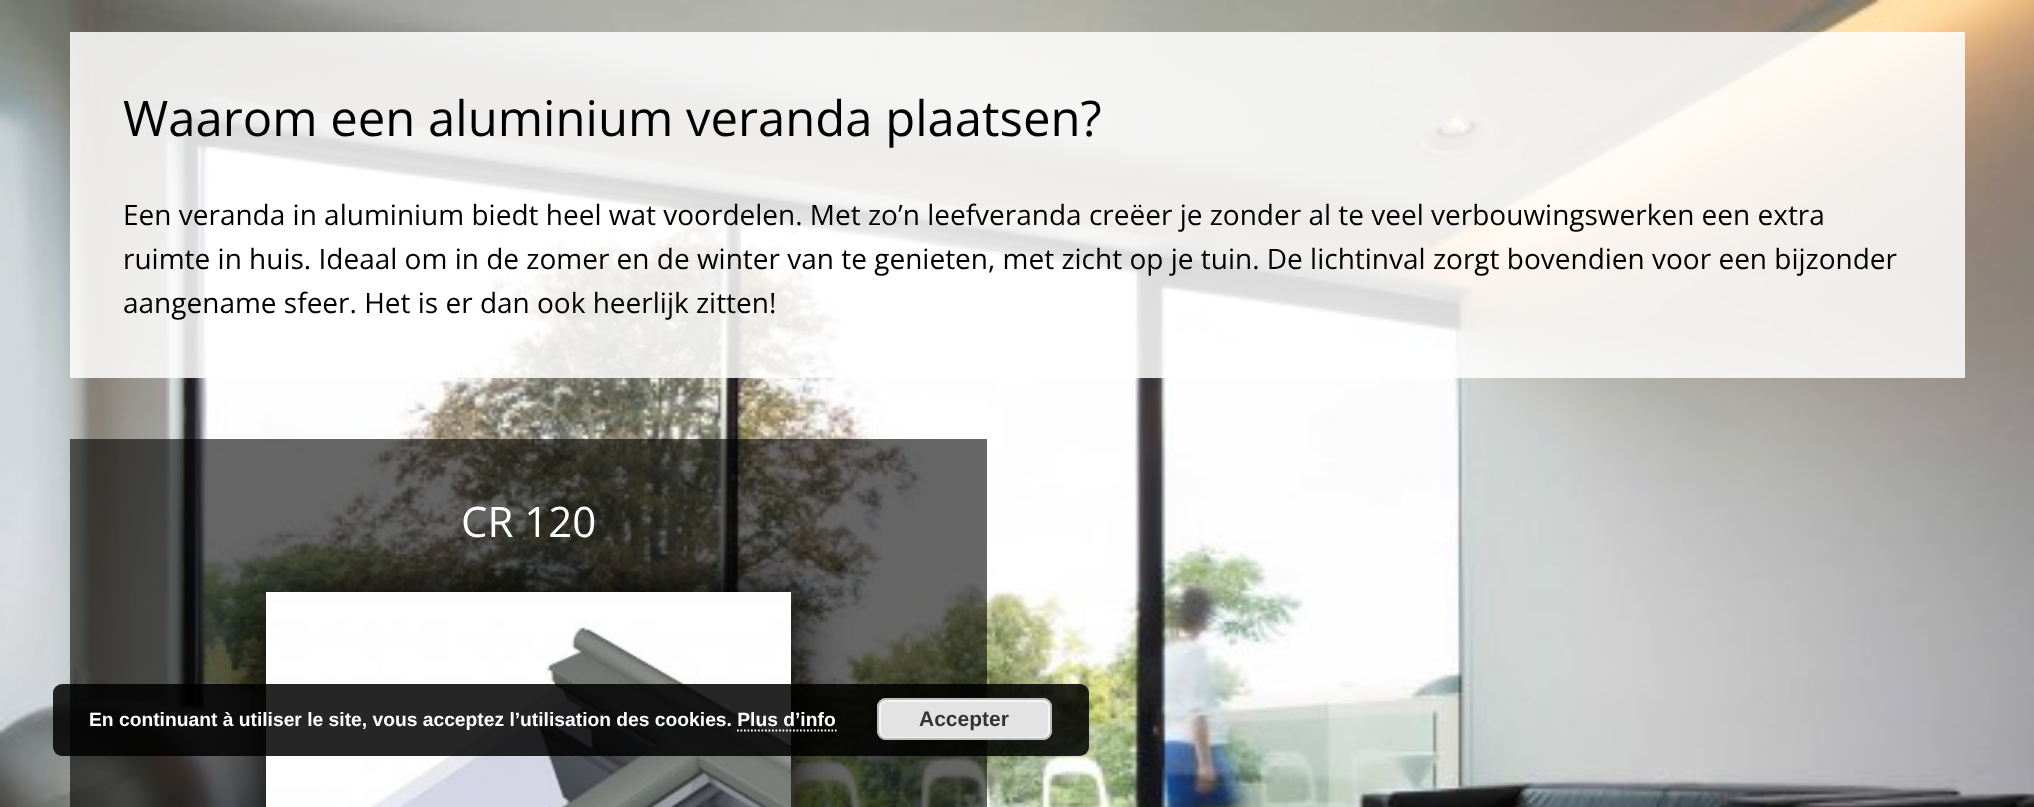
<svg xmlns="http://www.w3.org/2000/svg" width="2034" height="807">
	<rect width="100%" height="100%" fill="#FFFFFF" />
	<image x="0" y="0" width="2034" height="807" href="assets/img1.png" />
	<rect x="70" y="32" width="1895" height="346" fill="#FFFFFF" fill-opacity="0.85" />
	<text x="123" y="136" font-family="Open Sans" font-size="49" fill="#000000">Waarom een aluminium veranda plaatsen?</text>
	<g font-family="Open Sans" font-size="28" fill="#000000">
		<text x="123" y="225">Een veranda in aluminium biedt heel wat voordelen. Met zo’n leefveranda creëer je zonder al te veel verbouwingswerken een extra</text>
		<text x="123" y="269">ruimte in huis. Ideaal om in de zomer en de winter van te genieten, met zicht op je tuin. De lichtinval zorgt bovendien voor een bijzonder</text>
		<text x="123" y="313">aangename sfeer. Het is er dan ook heerlijk zitten!</text>
	</g>
	<rect x="70" y="439" width="917" height="368" fill="#000000" fill-opacity="0.6" />
	<text x="461" y="537" font-family="Open Sans" font-size="42" fill="#FFFFFF">CR 120</text>
	<rect x="266" y="592" width="525" height="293" fill="#000000" filter="blur(26px)" />
	<image x="266" y="592" width="525" height="215" href="assets/img2.png" />
	<rect x="53" y="684" width="1036" height="72" rx="9" fill="#000000" fill-opacity="0.85" />
	<text x="89" y="726" font-family="Liberation Sans" font-size="19.25" font-weight="700" fill="#FFFFFF">En continuant à utiliser le site, vous acceptez l’utilisation des cookies. Plus d’info</text>
	<rect x="877" y="698" width="175" height="42" rx="9" fill="#E3E3E3" />
	<rect x="880" y="701" width="169" height="37" rx="6" fill="none" stroke="#F6F6F6" stroke-width="2" />
	<rect x="878" y="699" width="173" height="40" rx="8" fill="none" stroke="#BBBBBB" stroke-width="2" />
	<text x="919" y="726" font-family="Liberation Sans" font-size="21" font-weight="700" fill="#333333">Accepter</text>
	<path d="M737 730.5H836.5" fill="none" stroke="#FFFFFF" stroke-width="1.8" stroke-dasharray="1.75 1.75" />
</svg>
